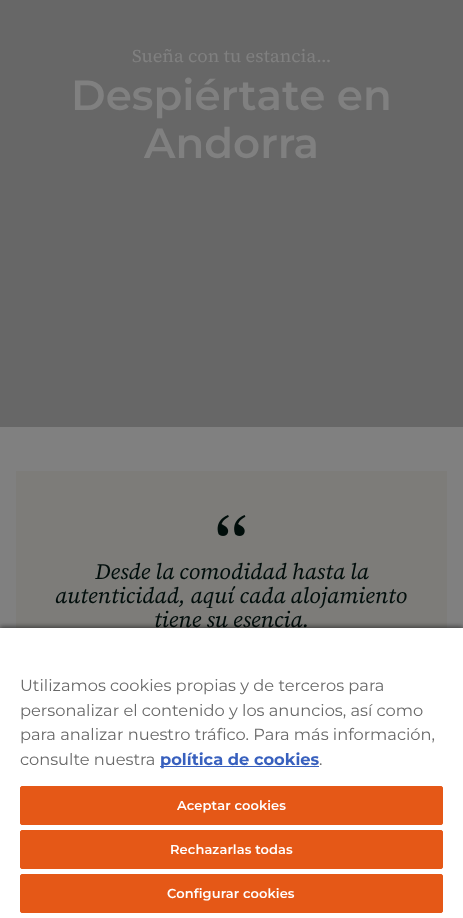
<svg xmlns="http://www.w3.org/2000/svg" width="463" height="918">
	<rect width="100%" height="100%" fill="#808080" />
	<rect x="0" y="0" width="463" height="427" fill="#676767" />
	<text x="132" y="62" font-family="'Source Serif 4'" font-size="18" fill="#808080">Sueña con tu estancia...</text>
	<g font-family="Montserrat" font-size="42" font-weight="600" fill="#808080">
		<text x="71" y="110">Despiértate en</text>
		<text x="144" y="158">Andorra</text>
	</g>
	<rect x="16" y="471" width="431" height="157" fill="#7D7C79" />
	<image x="217" y="515" width="29" height="21" href="assets/img1.png" />
	<g font-family="'Source Serif 4'" font-size="22" font-style="italic" fill="#000D0B">
		<text x="95" y="579">Desde la comodidad hasta la</text>
		<text x="55" y="603">autenticidad, aquí cada alojamiento</text>
		<text x="154" y="627">tiene su esencia.</text>
	</g>
	<rect x="0" y="626" width="463" height="292" fill="#000000" fill-opacity="0.35" filter="blur(2px)" />
	<rect x="0" y="628" width="463" height="290" fill="#000000" fill-opacity="0.2" filter="blur(2px)" />
	<rect x="0" y="628" width="463" height="290" fill="#FFFFFF" />
	<g font-family="Montserrat" font-size="16.25" fill="#696969">
		<text x="20" y="691">Utilizamos cookies propias y de terceros para</text>
		<text x="20" y="716">personalizar el contenido y los anuncios, así como</text>
		<text x="20" y="740">para analizar nuestro tráfico. Para más información,</text>
		<text x="20" y="765">consulte nuestra</text>
	</g>
	<rect x="160" y="766" width="159" height="1" fill="#3860BE" />
	<text x="160" y="765" font-family="Montserrat" font-size="16.25" font-weight="700" fill="#3860BE">política de cookies</text>
	<text x="319" y="765" font-family="Montserrat" font-size="16.25" fill="#696969">.</text>
	<rect x="20.5" y="786.5" width="422" height="38" rx="1.5" fill="#E55817" stroke="#E55817" />
	<text x="177" y="810" font-family="Montserrat" font-size="13" font-weight="600" letter-spacing="0.1" fill="#FFFFFF">Aceptar cookies</text>
	<rect x="20.5" y="830.5" width="422" height="38" rx="1.5" fill="#E55817" stroke="#E55817" />
	<text x="170" y="854" font-family="Montserrat" font-size="13" font-weight="600" letter-spacing="0.1" fill="#FFFFFF">Rechazarlas todas</text>
	<rect x="20.5" y="874.5" width="422" height="38" rx="1.5" fill="#E55817" stroke="#E55817" />
	<text x="167" y="898" font-family="Montserrat" font-size="13" font-weight="600" letter-spacing="0.1" fill="#FFFFFF">Configurar cookies</text>
</svg>
